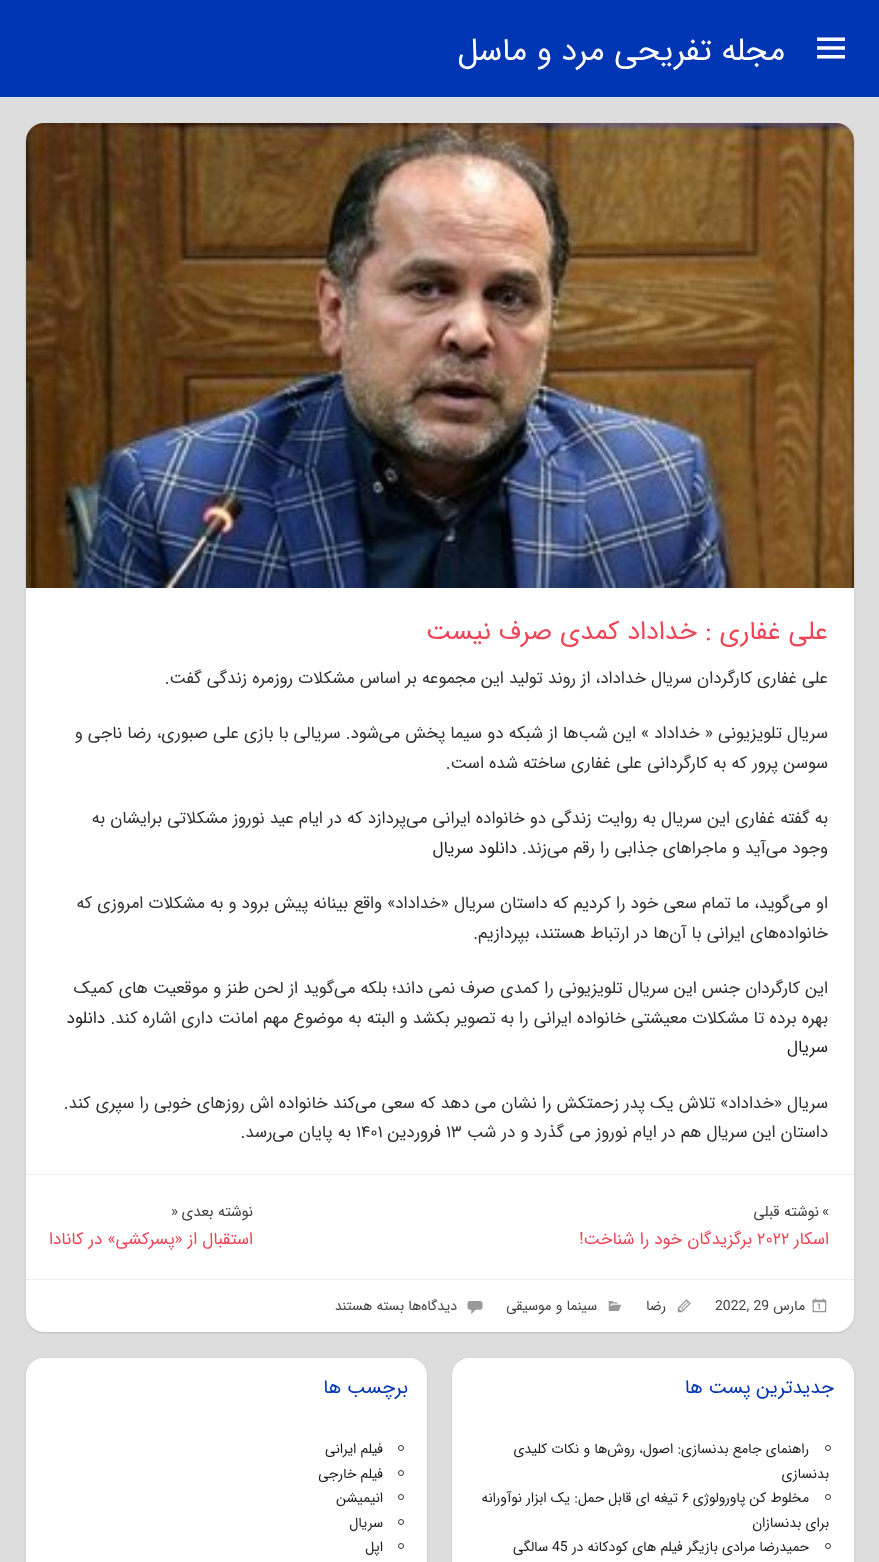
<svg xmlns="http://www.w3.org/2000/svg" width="879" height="1562">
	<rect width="100%" height="100%" fill="#DDDDDD" />
	<rect x="0" y="0" width="879" height="97" fill="#0035B4" />
	<image x="817" y="37" width="28" height="22" href="assets/img1.png" />
	<text x="785" y="60" font-family="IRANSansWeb" font-size="32" direction="rtl" fill="#FFFFFF">مجله تفریحی مرد و ماسل</text>
	<rect x="26" y="124" width="828" height="1209" rx="18" fill="#BBBBBB" filter="blur(1px)" />
	<rect x="26" y="123" width="828" height="1209" rx="18" fill="#FFFFFF" />
	<image x="26" y="123" width="828" height="465" href="assets/img2.png" />
	<text x="828" y="639" font-family="IRANSansWeb" font-size="26" direction="rtl" fill="#EE4455">علی غفاری : خداداد کمدی صرف نیست</text>
	<g font-family="IRANSansWeb" font-size="17" direction="rtl" fill="#303030">
		<text x="828" y="683">علی غفاری کارگردان سریال خداداد، از روند تولید این مجموعه بر اساس مشکلات روزمره زندگی گفت.</text>
		<text x="828" y="738">سریال تلویزیونی « خداداد » این شب‌ها از شبکه دو سیما پخش می‌شود. سریالی با بازی علی صبوری، رضا ناجی و</text>
		<text x="828" y="768">سوسن پرور که به کارگردانی علی غفاری ساخته شده است.</text>
		<text x="828" y="823">به گفته غفاری این سریال به روایت زندگی دو خانواده ایرانی می‌پردازد که در ایام عید نوروز مشکلاتی برایشان به</text>
		<text x="828" y="853">وجود می‌آید و ماجرا‌های جذابی را رقم می‌زند.</text>
	</g>
	<text x="517" y="853" font-family="IRANSansWeb" font-size="17" direction="rtl" fill="#1D1D1D">دانلود سریال</text>
	<g font-family="IRANSansWeb" font-size="17" direction="rtl" fill="#303030">
		<text x="828" y="908">او می‌گوید، ما تمام سعی خود را کردیم که داستان سریال «خداداد» واقع بینانه پیش برود و به مشکلات امروزی که</text>
		<text x="828" y="938">خانواده‌های ایرانی با آن‌ها در ارتباط هستند، بپردازیم.</text>
		<text x="828" y="993">این کارگردان جنس این سریال تلویزیونی را کمدی صرف نمی داند؛ بلکه می‌گوید از لحن طنز و موقعیت های کمیک</text>
		<text x="828" y="1023">بهره برده تا مشکلات معیشتی خانواده ایرانی را به تصویر بکشد و البته به موضوع مهم امانت داری اشاره کند.</text>
	</g>
	<g font-family="IRANSansWeb" font-size="17" direction="rtl" fill="#1D1D1D">
		<text x="105" y="1023">دانلود</text>
		<text x="828" y="1052">سریال</text>
	</g>
	<g font-family="IRANSansWeb" font-size="17" direction="rtl" fill="#303030">
		<text x="828" y="1108">سریال «خداداد» تلاش یک پدر زحمتکش را نشان می دهد که سعی می‌کند خانواده اش روز‌های خوبی را سپری کند.</text>
		<text x="828" y="1137">داستان این سریال هم در ایام نوروز می گذرد و در شب</text>
	</g>
	<text x="446" y="1137" font-family="IRANSansWeb" font-size="17" fill="#303030">۱۳</text>
	<text x="441" y="1137" font-family="IRANSansWeb" font-size="17" direction="rtl" fill="#303030">فروردین</text>
	<text x="356" y="1137" font-family="IRANSansWeb" font-size="17" fill="#303030">۱۴۰۱</text>
	<text x="351" y="1137" font-family="IRANSansWeb" font-size="17" direction="rtl" fill="#303030">به پایان می‌رسد.</text>
	<rect x="26" y="1174" width="828" height="1" fill="#EEEEEE" />
	<text x="822" y="1216" font-family="IRANSansWeb" font-size="15" fill="#404040">«</text>
	<text x="819" y="1216" font-family="IRANSansWeb" font-size="15" direction="rtl" fill="#404040">نوشته‌ قبلی</text>
	<text x="829" y="1244" font-family="IRANSansWeb" font-size="17" direction="rtl" fill="#EE4455">اسکار</text>
	<text x="757" y="1244" font-family="IRANSansWeb" font-size="17" fill="#EE4455">۲۰۲۲</text>
	<text x="752" y="1244" font-family="IRANSansWeb" font-size="17" direction="rtl" fill="#EE4455">برگزیدگان خود را شناخت!</text>
	<text x="253" y="1216" font-family="IRANSansWeb" font-size="15" direction="rtl" fill="#404040">نوشته بعدی</text>
	<text x="171" y="1216" font-family="IRANSansWeb" font-size="15" fill="#404040">»</text>
	<text x="253" y="1244" font-family="IRANSansWeb" font-size="17" direction="rtl" fill="#EE4455">استقبال از «پسرکشی» در کانادا</text>
	<rect x="26" y="1279" width="828" height="1" fill="#EEEEEE" />
	<image x="812" y="1298" width="15" height="15" href="assets/img3.png" />
	<text x="805" y="1310" font-family="IRANSansWeb" font-size="14" direction="rtl" fill="#404040">مارس</text>
	<text x="715" y="1310" font-family="IRANSansWeb" font-size="14" fill="#404040">2022, 29</text>
	<image x="677" y="1299" width="14" height="14" href="assets/img4.png" />
	<text x="666" y="1310" font-family="IRANSansWeb" font-size="14" direction="rtl" fill="#404040">رضا</text>
	<image x="608" y="1301" width="14" height="10" href="assets/img5.png" />
	<text x="597" y="1310" font-family="IRANSansWeb" font-size="14" direction="rtl" fill="#404040">سینما و موسیقی</text>
	<image x="467" y="1301" width="16" height="13" href="assets/img6.png" />
	<g font-family="IRANSansWeb" font-size="14" direction="rtl" fill="#404040">
		<text x="457" y="1310">دیدگاه‌ها</text>
		<text x="404" y="1310">بسته هستند</text>
	</g>
	<rect x="452" y="1359" width="402" height="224" rx="18" fill="#BBBBBB" filter="blur(1px)" />
	<rect x="452" y="1358" width="402" height="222" rx="18" fill="#FFFFFF" />
	<path d="M470 1358H836C846 1358 854 1366 854 1376V1420H452V1376C452 1366 460 1358 470 1358Z" fill="#FFFFFF" />
	<text x="834" y="1393" font-family="IRANSansWeb" font-size="19.25" direction="rtl" fill="#0035B4">جدیدترین پست ها</text>
	<circle cx="828" cy="1448" r="2.5" fill="none" stroke="#303030" />
	<g font-family="IRANSansWeb" font-size="14" direction="rtl" fill="#1D1D1D">
		<text x="809" y="1453">راهنمای جامع بدنسازی: اصول، روش‌ها و نکات کلیدی</text>
		<text x="829" y="1478">بدنسازی</text>
	</g>
	<circle cx="828" cy="1497" r="2.5" fill="none" stroke="#303030" />
	<text x="809" y="1502" font-family="IRANSansWeb" font-size="14" direction="rtl" fill="#1D1D1D">مخلوط کن پاورولوژی</text>
	<text x="682" y="1502" font-family="IRANSansWeb" font-size="14" fill="#1D1D1D">۶</text>
	<g font-family="IRANSansWeb" font-size="14" direction="rtl" fill="#1D1D1D">
		<text x="678" y="1502">تیغه ای قابل حمل: یک ابزار نوآورانه</text>
		<text x="829" y="1527">برای بدنسازان</text>
	</g>
	<circle cx="828" cy="1546" r="2.5" fill="none" stroke="#303030" />
	<text x="809" y="1551" font-family="IRANSansWeb" font-size="14" direction="rtl" fill="#1D1D1D">حمیدرضا مرادی بازیگر فیلم های کودکانه در</text>
	<text x="552" y="1551" font-family="IRANSansWeb" font-size="14" fill="#1D1D1D">45</text>
	<text x="548" y="1551" font-family="IRANSansWeb" font-size="14" direction="rtl" fill="#1D1D1D">سالگی</text>
	<rect x="26" y="1359" width="401" height="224" rx="18" fill="#BBBBBB" filter="blur(1px)" />
	<rect x="26" y="1358" width="401" height="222" rx="18" fill="#FFFFFF" />
	<path d="M44 1358H409C419 1358 427 1366 427 1376V1420H26V1376C26 1366 34 1358 44 1358Z" fill="#FFFFFF" />
	<text x="408" y="1393" font-family="IRANSansWeb" font-size="19.25" direction="rtl" fill="#0035B4">برچسب ها</text>
	<circle cx="401" cy="1448" r="2.5" fill="none" stroke="#303030" />
	<text x="383" y="1453" font-family="IRANSansWeb" font-size="14" direction="rtl" fill="#1D1D1D">فیلم ایرانی</text>
	<circle cx="401" cy="1473" r="2.5" fill="none" stroke="#303030" />
	<text x="383" y="1478" font-family="IRANSansWeb" font-size="14" direction="rtl" fill="#1D1D1D">فیلم خارجی</text>
	<circle cx="401" cy="1497" r="2.5" fill="none" stroke="#303030" />
	<text x="383" y="1502" font-family="IRANSansWeb" font-size="14" direction="rtl" fill="#1D1D1D">انیمیشن</text>
	<circle cx="401" cy="1522" r="2.5" fill="none" stroke="#303030" />
	<text x="383" y="1527" font-family="IRANSansWeb" font-size="14" direction="rtl" fill="#1D1D1D">سریال</text>
	<circle cx="401" cy="1546" r="2.5" fill="none" stroke="#303030" />
	<text x="383" y="1551" font-family="IRANSansWeb" font-size="14" direction="rtl" fill="#1D1D1D">اپل</text>
</svg>
